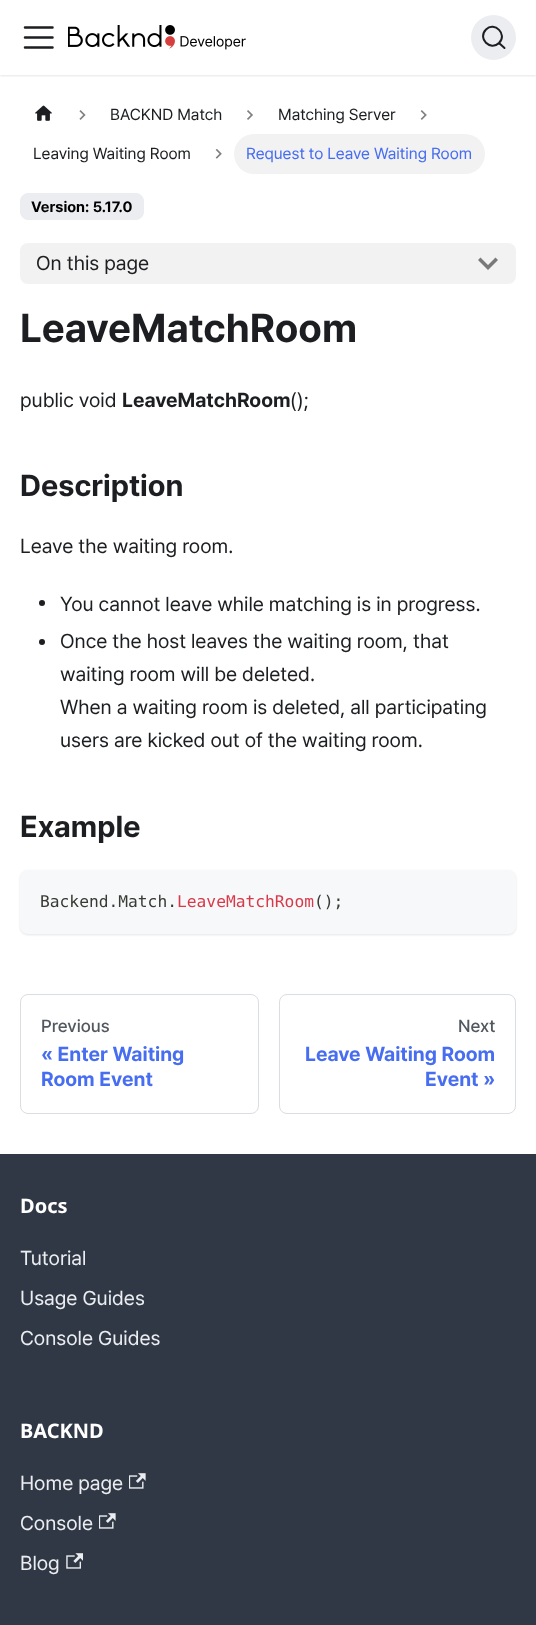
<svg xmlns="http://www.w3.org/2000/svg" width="536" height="1625">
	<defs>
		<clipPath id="clip1"><rect x="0" y="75" width="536" height="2" /></clipPath>
	</defs>
	<rect width="100%" height="100%" fill="#FFFFFF" />
	<g clip-path="url(#clip1)">
		<rect x="0" y="1" width="536" height="75" fill="#000000" fill-opacity="0.1" filter="blur(1px)" />
	</g>
	<path d="M25 27.5H52.5M25 37.5H52.5M25 47.5H52.5" fill="none" stroke="#1C1E21" stroke-width="2.5" stroke-linecap="round" />
	<image x="68" y="25" width="178" height="25" href="assets/img1.png" />
	<circle cx="493.5" cy="37.5" r="22.5" fill="#EBEDF0" />
	<path d="M499 43L504.5 48L499 43C490.5 51.5 477 38.5 486 29.5C494.5 21 508 34.5 499 43Z" fill="none" stroke="#1C1E21" stroke-width="2" stroke-linecap="round" stroke-linejoin="round" />
	<image x="35" y="105" width="17" height="16" href="assets/img2.png" />
	<image x="79" y="110" width="7" height="10" href="assets/img3.png" />
	<text x="110" y="120" font-family="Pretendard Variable" font-size="16" fill="#1C1E21">BACKND Match</text>
	<image x="247" y="110" width="6" height="10" href="assets/img4.png" />
	<text x="278" y="120" font-family="Pretendard Variable" font-size="16" fill="#1C1E21">Matching Server</text>
	<image x="420" y="110" width="7" height="10" href="assets/img5.png" />
	<text x="33" y="159" font-family="Pretendard Variable" font-size="16" fill="#1C1E21">Leaving Waiting Room</text>
	<image x="215" y="149" width="7" height="10" href="assets/img6.png" />
	<rect x="234" y="134" width="251" height="40" rx="20" fill="#F2F2F2" />
	<text x="246" y="159" font-family="Pretendard Variable" font-size="16" fill="#476DF1">Request to Leave Waiting Room</text>
	<rect x="20.5" y="193.5" width="123" height="26" rx="7.5" fill="#EBEDF0" stroke="#EBEDF0" />
	<text x="31" y="212" font-family="Pretendard Variable" font-size="15" font-weight="700" fill="#000000">Version: 5.17.0</text>
	<rect x="20" y="243" width="496" height="41" rx="8" fill="#F2F2F2" />
	<text x="36" y="270" font-family="Pretendard Variable" font-size="20" fill="#1C1E21">On this page</text>
	<path d="M495.5 257.5L488 265L480.5 257.5L478 260L488 270L498 260Z" fill="#797979" />
	<text x="20" y="342" font-family="Pretendard Variable" font-size="40" font-weight="700" fill="#1C1E21">LeaveMatchRoom</text>
	<text x="20" y="407" font-family="Pretendard Variable" font-size="20" fill="#1C1E21">public void</text>
	<text x="122" y="407" font-family="Pretendard Variable" font-size="20" font-weight="700" fill="#1C1E21">LeaveMatchRoom</text>
	<text x="290" y="407" font-family="Pretendard Variable" font-size="20" fill="#1C1E21">();</text>
	<text x="20" y="496" font-family="Pretendard Variable" font-size="30" font-weight="700" fill="#1C1E21">Description</text>
	<text x="20" y="553" font-family="Pretendard Variable" font-size="20" fill="#1C1E21">Leave the waiting room.</text>
	<circle cx="42" cy="603" r="3" fill="#1C1E21" />
	<text x="60" y="611" font-family="Pretendard Variable" font-size="20" fill="#1C1E21">You cannot leave while matching is in progress.</text>
	<circle cx="42" cy="642" r="3" fill="#1C1E21" />
	<g font-family="Pretendard Variable" font-size="20" fill="#1C1E21">
		<text x="60" y="648">Once the host leaves the waiting room, that</text>
		<text x="60" y="681">waiting room will be deleted.</text>
		<text x="60" y="714">When a waiting room is deleted, all participating</text>
		<text x="60" y="747">users are kicked out of the waiting room.</text>
	</g>
	<text x="20" y="837" font-family="Pretendard Variable" font-size="30" font-weight="700" fill="#1C1E21">Example</text>
	<rect x="20" y="871" width="496" height="64" rx="8" fill="#000000" fill-opacity="0.1" filter="blur(1px)" />
	<rect x="20" y="870" width="496" height="64" rx="8" fill="#F6F8FA" />
	<text x="40" y="907" font-family="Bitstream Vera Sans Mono" font-size="16.25" fill="#393A34">Backend.Match.</text>
	<text x="177" y="907" font-family="Bitstream Vera Sans Mono" font-size="16.25" fill="#D73A49">LeaveMatchRoom</text>
	<text x="314" y="907" font-family="Bitstream Vera Sans Mono" font-size="16.25" fill="#393A34">();</text>
	<rect x="20.5" y="994.5" width="238" height="119" rx="7.5" fill="none" stroke="#DADDE1" />
	<text x="41" y="1032" font-family="Pretendard Variable" font-size="17.5" font-weight="500" fill="#525860">Previous</text>
	<g font-family="Pretendard Variable" font-size="20" font-weight="700" fill="#476DF1">
		<text x="41" y="1061">« Enter Waiting</text>
		<text x="41" y="1086">Room Event</text>
	</g>
	<rect x="279.5" y="994.5" width="236" height="119" rx="7.5" fill="none" stroke="#DADDE1" />
	<text x="458" y="1032" font-family="Pretendard Variable" font-size="17.5" font-weight="500" fill="#525860">Next</text>
	<g font-family="Pretendard Variable" font-size="20" font-weight="700" fill="#476DF1">
		<text x="305" y="1061">Leave Waiting Room</text>
		<text x="425" y="1086">Event »</text>
	</g>
	<rect x="0" y="1154" width="536" height="471" fill="#303846" />
	<text x="20" y="1213" font-family="Noto Sans" font-size="20" font-weight="700" fill="#FFFFFF">Docs</text>
	<g font-family="Pretendard Variable" font-size="20" fill="#EBEDF0">
		<text x="20" y="1265">Tutorial</text>
		<text x="20" y="1305">Usage Guides</text>
		<text x="20" y="1345">Console Guides</text>
	</g>
	<text x="20" y="1438" font-family="Noto Sans" font-size="20" font-weight="700" fill="#FFFFFF">BACKND</text>
	<text x="20" y="1490" font-family="Pretendard Variable" font-size="20" fill="#EBEDF0">Home page</text>
	<image x="129" y="1473" width="17" height="16" href="assets/img7.png" />
	<text x="20" y="1530" font-family="Pretendard Variable" font-size="20" fill="#EBEDF0">Console</text>
	<image x="99" y="1513" width="17" height="16" href="assets/img7.png" />
	<text x="20" y="1570" font-family="Pretendard Variable" font-size="20" fill="#EBEDF0">Blog</text>
	<image x="66" y="1553" width="17" height="16" href="assets/img8.png" />
</svg>
